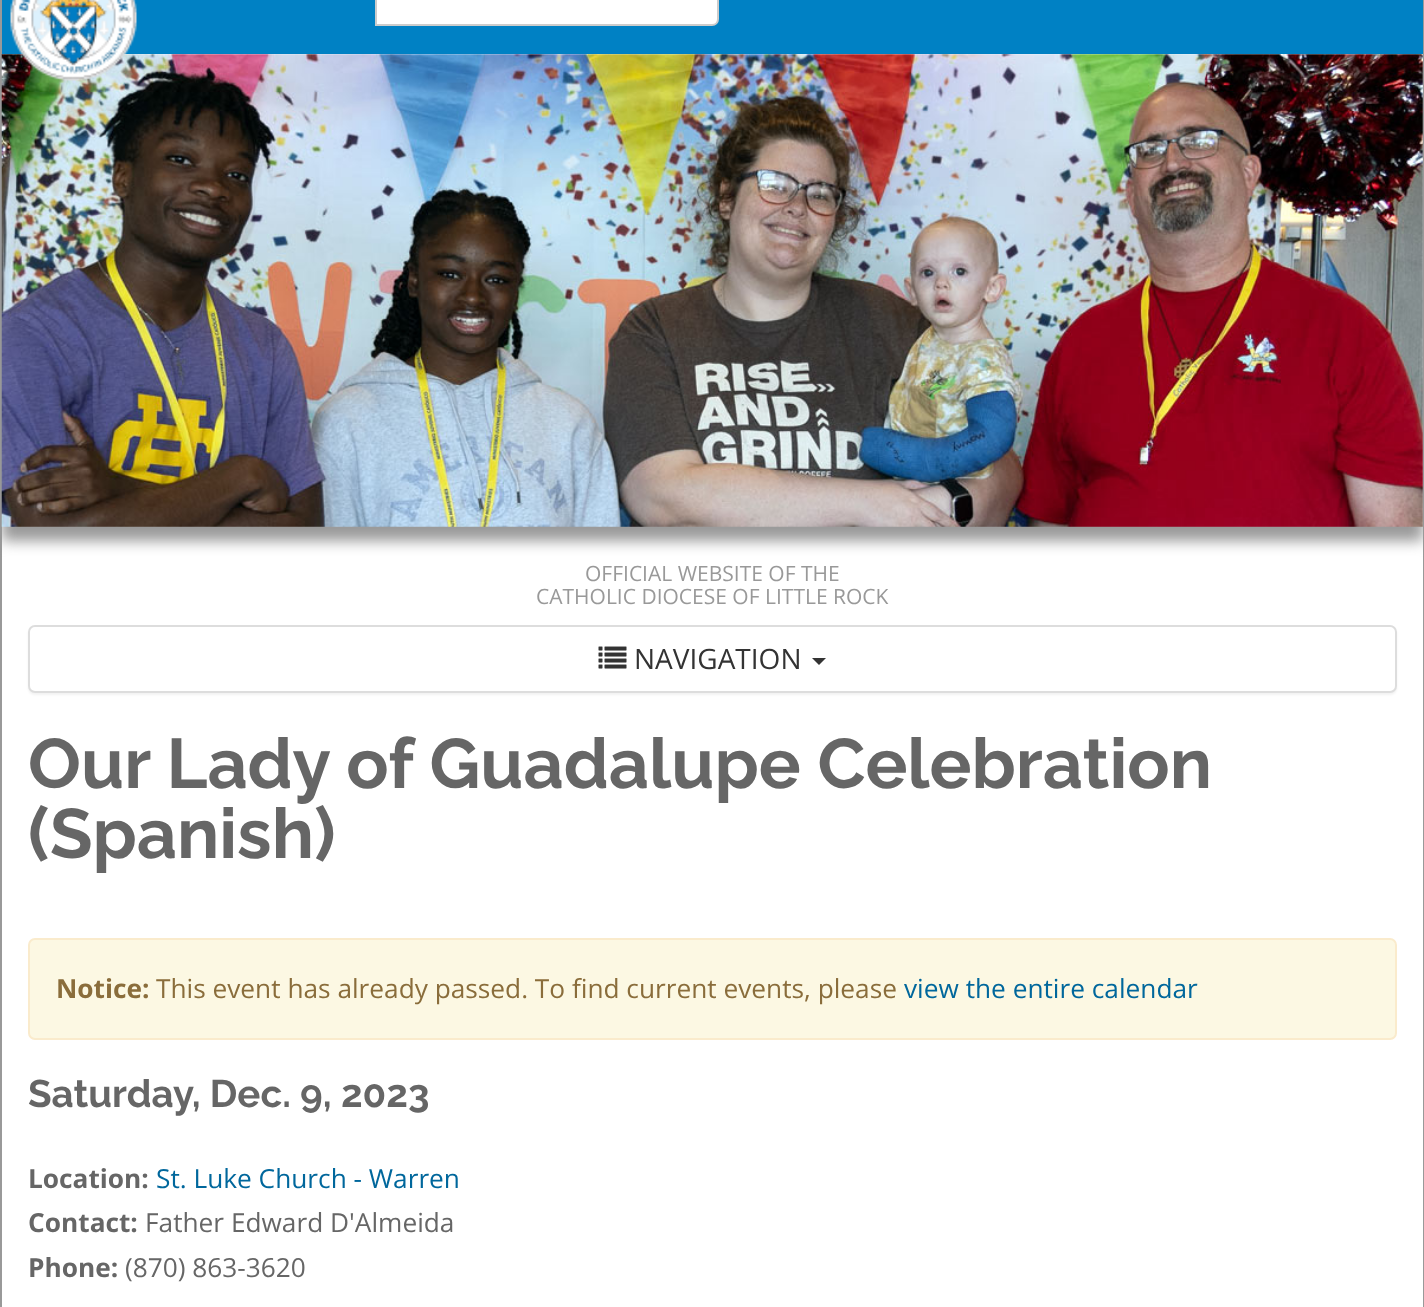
<svg xmlns="http://www.w3.org/2000/svg" width="1424" height="1307">
	<rect width="100%" height="100%" fill="#FFFFFF" />
	<rect x="1423" y="0" width="1" height="1307" fill="#999999" />
	<rect x="0" y="0" width="2" height="1307" fill="#999999" />
	<rect x="2" y="0" width="1421" height="54" fill="#0081C4" />
	<path d="M376-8H712C715.5-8 718-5.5 718-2V19C718 22.5 715.5 25 712 25H376Z" fill="#FFFFFF" stroke="#CCCCCC" stroke-width="2" />
	<rect x="2" y="68" width="1421" height="473" fill="#999999" filter="blur(7px)" />
	<image x="1" y="54" width="1422" height="473" href="assets/img2.png" />
	<image x="10" y="0" width="127" height="81" href="assets/img1.png" />
	<g font-family="Open Sans" font-size="21" fill="#999999">
		<text x="585" y="581">OFFICIAL WEBSITE OF THE</text>
		<text x="536" y="604">CATHOLIC DIOCESE OF LITTLE ROCK</text>
	</g>
	<rect x="28" y="627" width="1369" height="68" rx="7" fill="#000000" fill-opacity="0.05" filter="blur(1px)" />
	<rect x="29" y="626" width="1367" height="66" rx="6" fill="#FFFFFF" stroke="#DDDDDD" stroke-width="2" />
	<image x="598" y="646" width="29" height="23" href="assets/img3.png" />
	<text x="634" y="669" font-family="Open Sans" font-size="28" fill="#333333">NAVIGATION</text>
	<path d="M812 658H826L819 665Z" fill="#333333" />
	<g font-family="Raleway" font-size="70" font-weight="700" fill="#666666">
		<text x="28" y="788">Our Lady of Guadalupe Celebration</text>
		<text x="28" y="858">(Spanish)</text>
	</g>
	<rect x="29" y="939" width="1367" height="100" rx="6" fill="#FCF8E3" stroke="#FAEBCC" stroke-width="2" />
	<text x="56" y="998" font-family="Open Sans" font-size="26.25" font-weight="700" fill="#8A6D3B">Notice:</text>
	<text x="156" y="998" font-family="Open Sans" font-size="26.25" fill="#8A6D3B">This event has already passed. To find current events, please</text>
	<text x="904" y="998" font-family="Open Sans" font-size="26.25" fill="#00679C">view the entire calendar</text>
	<text x="28" y="1107" font-family="Raleway" font-size="38.5" font-weight="700" fill="#666666">Saturday, Dec. 9, 2023</text>
	<text x="28" y="1188" font-family="Open Sans" font-size="26.25" font-weight="700" fill="#666666">Location:</text>
	<text x="156" y="1188" font-family="Open Sans" font-size="26.25" fill="#00679C">St. Luke Church - Warren</text>
	<text x="28" y="1232" font-family="Open Sans" font-size="26.25" font-weight="700" fill="#666666">Contact:</text>
	<text x="145" y="1232" font-family="Open Sans" font-size="26.25" fill="#666666">Father Edward D'Almeida</text>
	<text x="28" y="1277" font-family="Open Sans" font-size="26.25" font-weight="700" fill="#666666">Phone:</text>
	<text x="125" y="1277" font-family="Open Sans" font-size="26.25" fill="#666666">(870) 863-3620</text>
</svg>
